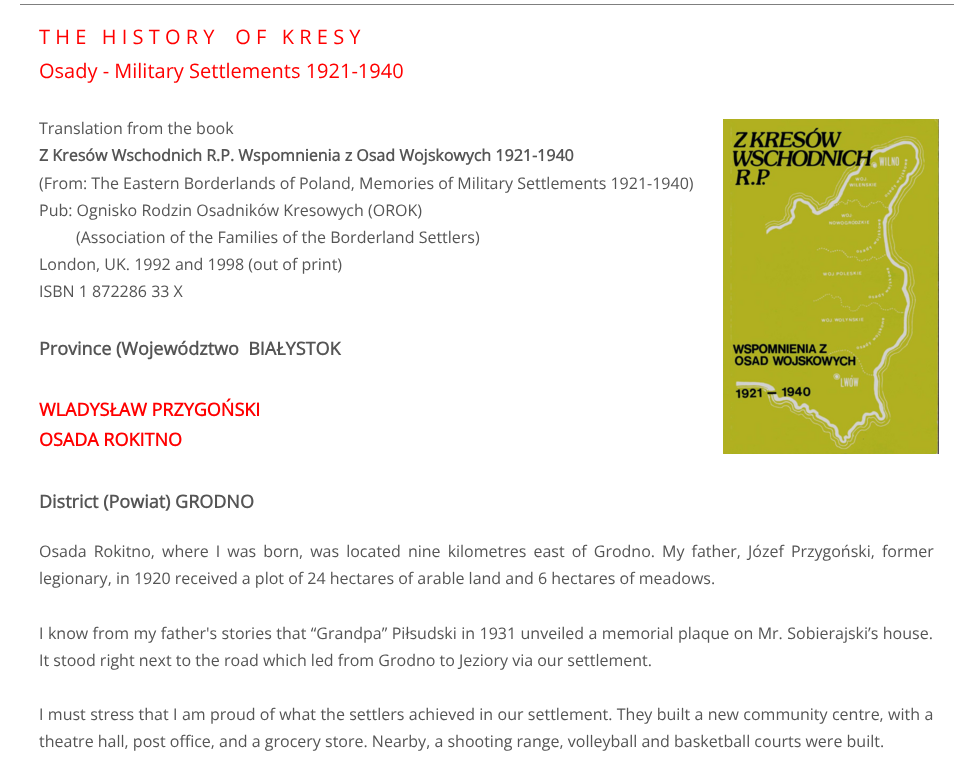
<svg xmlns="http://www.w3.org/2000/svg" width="961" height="774">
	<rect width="100%" height="100%" fill="#FFFFFF" />
	<rect x="20" y="4" width="934" height="1" fill="#7F7F7F" />
	<g font-family="Open Sans" font-size="20" fill="#FF0000">
		<text x="39" y="44" xml:space="preserve">T H E   H I S T O R Y    O F   K R E S Y</text>
		<text x="39" y="78">Osady - Military Settlements 1921-1940</text>
	</g>
	<text x="39" y="134" font-family="Open Sans" font-size="16" fill="#555555">Translation from the book</text>
	<text x="39" y="161" font-family="Open Sans" font-size="16" font-weight="700" fill="#555555">Z Kresów Wschodnich R.P. Wspomnienia z Osad Wojskowych 1921-1940</text>
	<g font-family="Open Sans" font-size="16" fill="#555555">
		<text x="39" y="189">(From: The Eastern Borderlands of Poland, Memories of Military Settlements 1921-1940)</text>
		<text x="39" y="216">Pub: Ognisko Rodzin Osadników Kresowych (OROK)</text>
		<text x="76" y="243">(Association of the Families of the Borderland Settlers)</text>
		<text x="39" y="270">London, UK. 1992 and 1998 (out of print)</text>
		<text x="39" y="297">ISBN 1 872286 33 X</text>
	</g>
	<text x="39" y="355" font-family="Open Sans" font-size="18" font-weight="700" fill="#555555" xml:space="preserve">Province (Województwo  BIAŁYSTOK</text>
	<g font-family="Open Sans" font-size="18" font-weight="700" fill="#FF0000">
		<text x="39" y="416">WLADYSŁAW PRZYGOŃSKI</text>
		<text x="39" y="446">OSADA ROKITNO</text>
	</g>
	<text x="39" y="508" font-family="Open Sans" font-size="18" font-weight="700" fill="#555555">District (Powiat) GRODNO</text>
	<image x="723" y="119" width="216" height="335" href="assets/img1.png" />
	<g font-family="Open Sans" font-size="16" fill="#555555">
		<text x="39" y="557" word-spacing="2.9">Osada Rokitno, where I was born, was located nine kilometres east of Grodno. My father, Józef Przygoński, former</text>
		<text x="39" y="584">legionary, in 1920 received a plot of 24 hectares of arable land and 6 hectares of meadows.</text>
		<text x="39" y="639" word-spacing="0.3">I know from my father's stories that “Grandpa” Piłsudski in 1931 unveiled a memorial plaque on Mr. Sobierajski’s house.</text>
		<text x="39" y="666">It stood right next to the road which led from Grodno to Jeziory via our settlement.</text>
		<text x="39" y="720" word-spacing="0.2">I must stress that I am proud of what the settlers achieved in our settlement. They built a new community centre, with a</text>
		<text x="39" y="747">theatre hall, post office, and a grocery store. Nearby, a shooting range, volleyball and basketball courts were built.</text>
	</g>
</svg>
